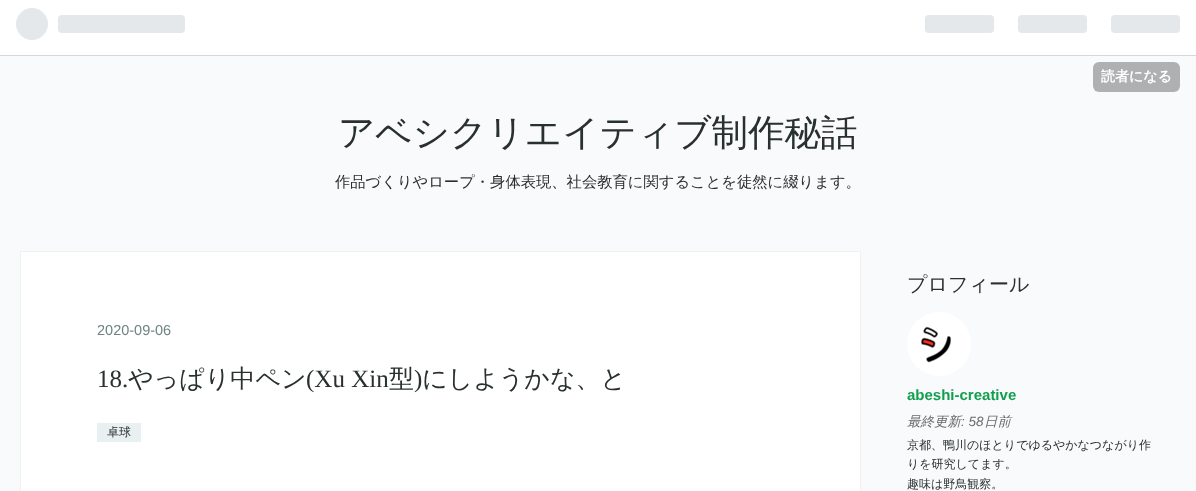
<svg xmlns="http://www.w3.org/2000/svg" width="1196" height="491">
	<rect width="100%" height="100%" fill="#F9FAFB" />
	<rect x="0" y="0" width="1196" height="55" fill="#FFFFFF" />
	<rect x="0" y="55" width="1196" height="1" fill="#D2D8DD" />
	<image x="16" y="8" width="169" height="32" href="assets/img1.png" />
	<image x="925" y="15" width="255" height="18" href="assets/img2.png" />
	<rect x="1093" y="62" width="87" height="30" rx="6" fill="#AEB0B2" />
	<text x="1101" y="81" font-family="WenQuanYi Zen Hei" font-size="14" font-weight="700" fill="#FFFFFF">読者になる</text>
	<text x="338" y="145" font-family="WenQuanYi Zen Hei" font-size="36.5" font-weight="500" fill="#293030">アベシクリエイティブ制作秘話</text>
	<text x="335" y="187" font-family="WenQuanYi Zen Hei" font-size="15.3" font-weight="500" fill="#293030">作品づくりやロープ・身体表現、社会教育に関することを徒然に綴ります。</text>
	<rect x="20.5" y="251.5" width="840" height="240" fill="#FFFFFF" stroke="#F0F1F1" />
	<text x="97" y="335" font-family="Liberation Sans" font-size="14.5" fill="#6F8383">2020-09-06</text>
	<text x="97" y="387" font-family="Liberation Serif" font-size="25" fill="#293030">18.</text>
	<text x="128" y="387" font-family="WenQuanYi Zen Hei" font-size="25" font-weight="500" fill="#293030">やっぱり中ペン</text>
	<text x="306" y="387" font-family="Liberation Serif" font-size="25" fill="#293030">(Xu Xin</text>
	<text x="389" y="387" font-family="WenQuanYi Zen Hei" font-size="25" font-weight="500" fill="#293030">型</text>
	<text x="414" y="387" font-family="Liberation Serif" font-size="25" fill="#293030">)</text>
	<text x="422" y="387" font-family="WenQuanYi Zen Hei" font-size="25" font-weight="500" fill="#293030">にしようかな、と</text>
	<rect x="97" y="423" width="44" height="19" fill="#E9F0F2" />
	<text x="107" y="436" font-family="WenQuanYi Zen Hei" font-size="12" font-weight="500" fill="#293030">卓球</text>
	<text x="907" y="291" font-family="WenQuanYi Zen Hei" font-size="20" font-weight="500" fill="#293030">プロフィール</text>
	<image x="907" y="312" width="64" height="64" href="assets/img3.png" />
	<text x="907" y="400" font-family="Liberation Sans" font-size="15" font-weight="700" fill="#119E4D">abeshi-creative</text>
	<text x="907" y="426" font-family="WenQuanYi Zen Hei" font-size="13.5" font-weight="500" font-style="italic" fill="#676D6D">最終更新</text>
	<text x="961" y="426" font-family="Liberation Sans" font-size="13.5" font-style="italic" fill="#676D6D">: 58</text>
	<text x="984" y="426" font-family="WenQuanYi Zen Hei" font-size="13.5" font-weight="500" font-style="italic" fill="#676D6D">日前</text>
	<g font-family="WenQuanYi Zen Hei" font-size="12" font-weight="500" fill="#293030">
		<text x="907" y="449">京都、鴨川のほとりでゆるやかなつながり作</text>
		<text x="907" y="468">りを研究してます。</text>
		<text x="907" y="488">趣味は野鳥観察。</text>
	</g>
</svg>
